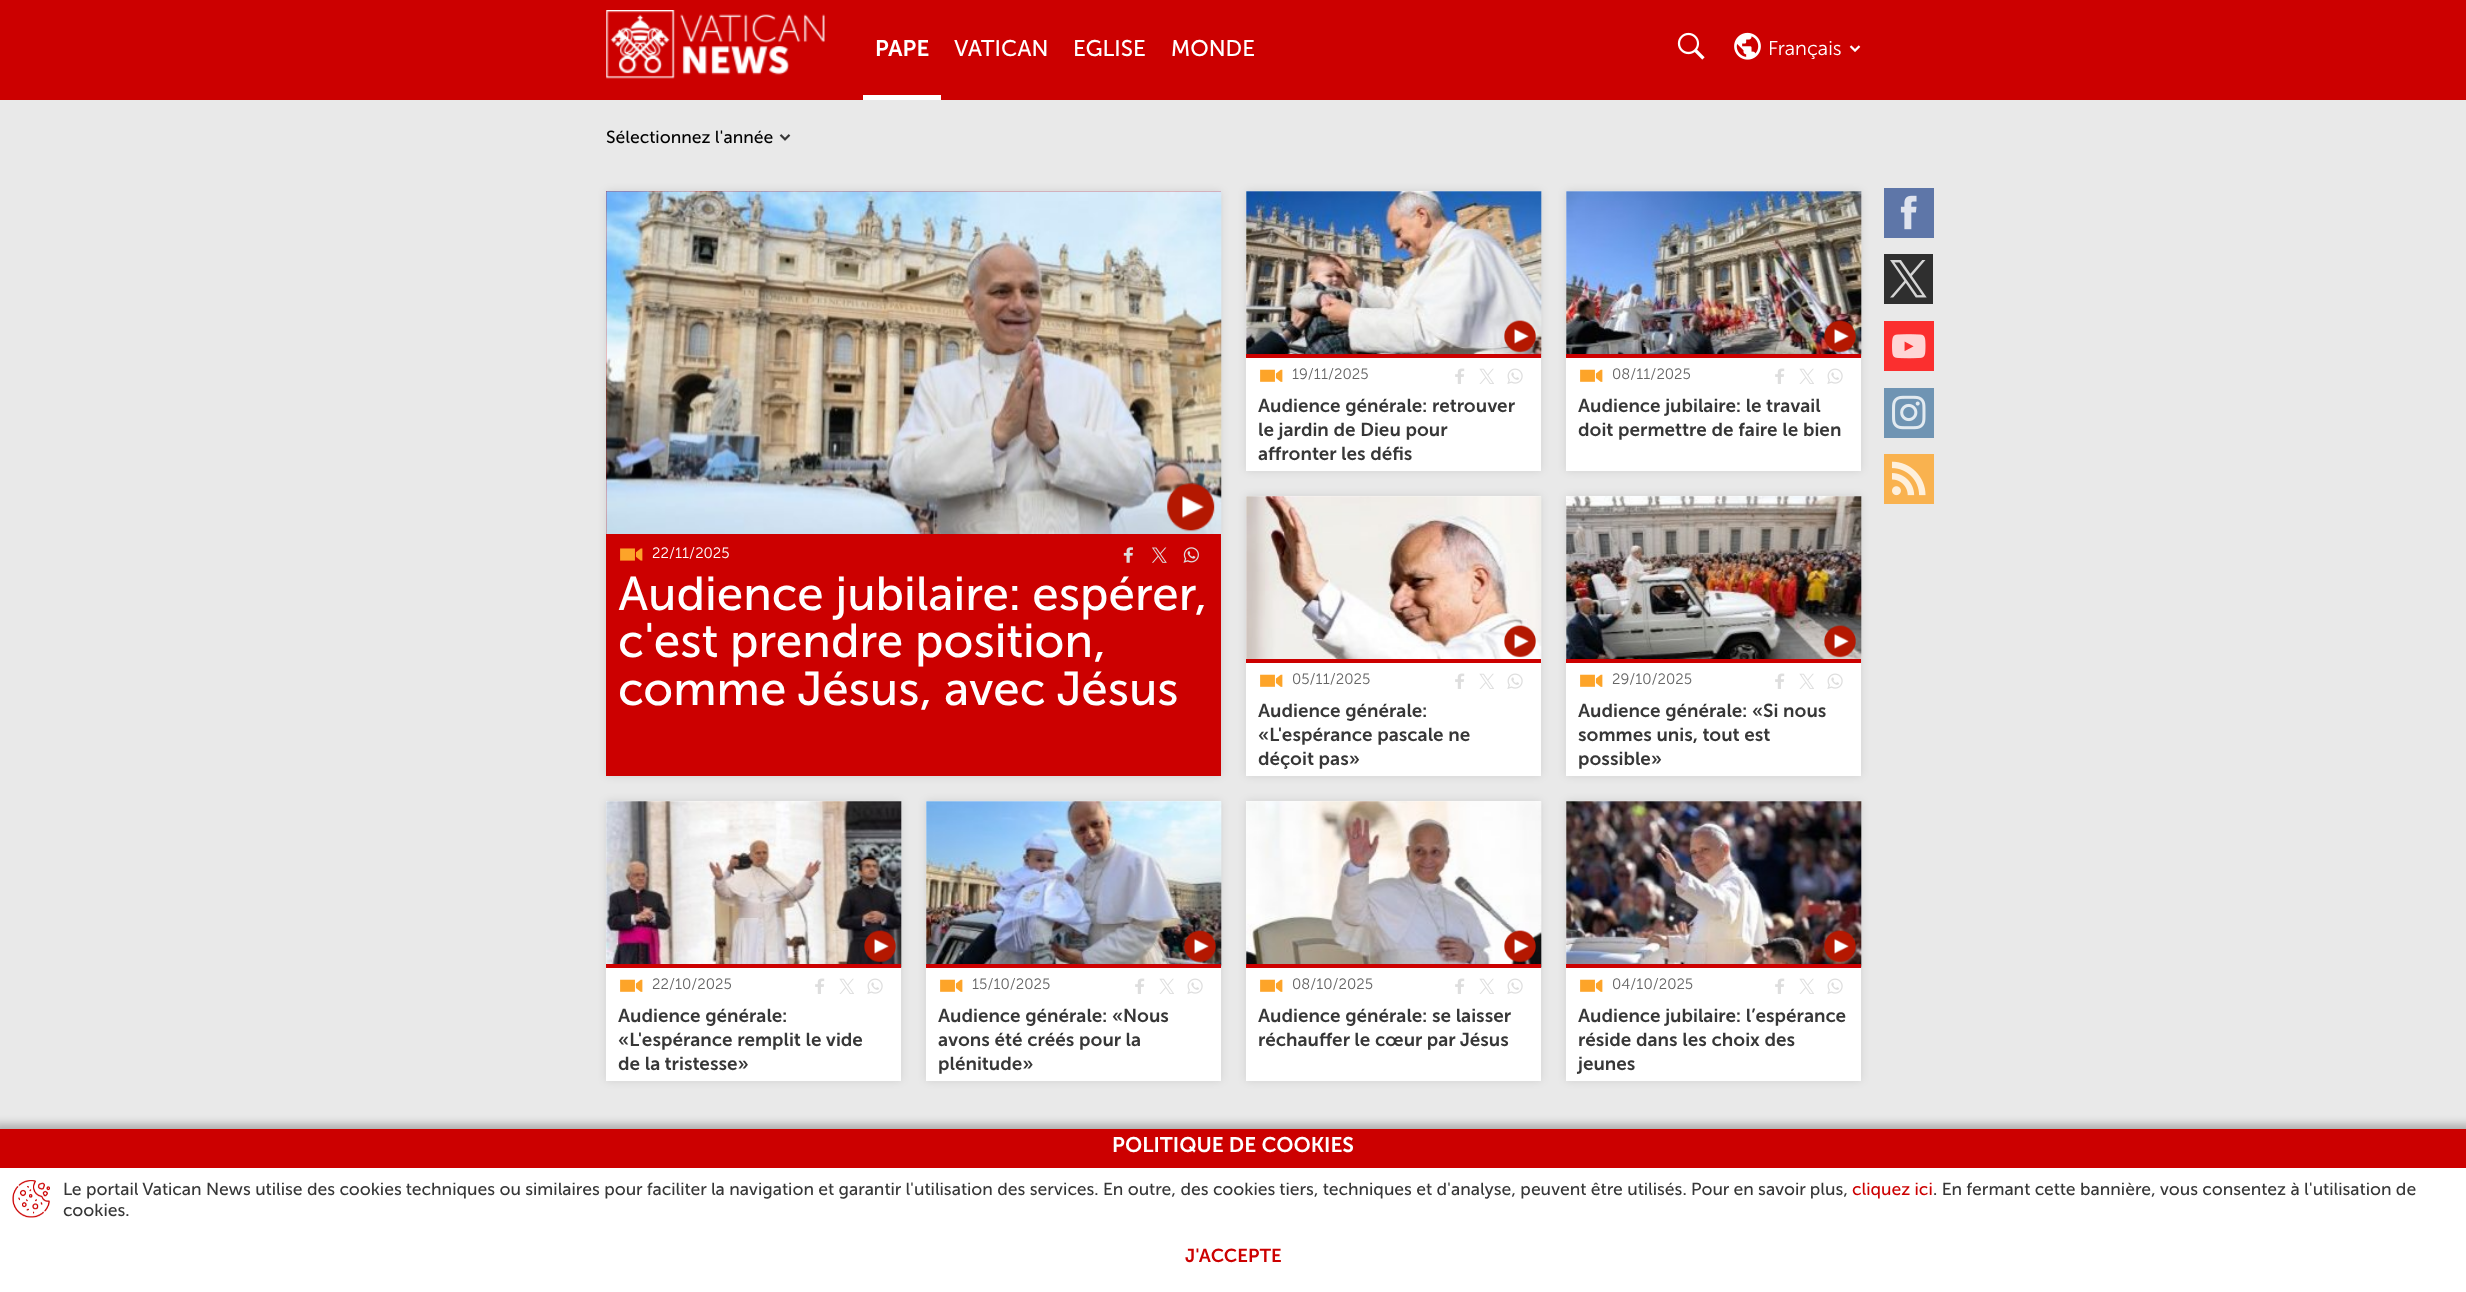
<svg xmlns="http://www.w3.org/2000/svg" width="2466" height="1292">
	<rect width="100%" height="100%" fill="#E9E9E9" />
	<rect x="0" y="0" width="2466" height="100" fill="#CC0000" />
	<image x="606" y="10" width="219" height="69" href="assets/img1.png" />
	<text x="875" y="56" font-family="'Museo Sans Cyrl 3'" font-size="22.5" fill="#FFFFFF">PAPE</text>
	<rect x="863" y="95" width="78" height="5" fill="#FFFFFF" />
	<g font-family="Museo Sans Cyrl" font-size="22.5" fill="#FFFFFF">
		<text x="954" y="56">VATICAN</text>
		<text x="1073" y="56">EGLISE</text>
		<text x="1171" y="56">MONDE</text>
	</g>
	<rect x="1884" y="188" width="50" height="50" fill="#5E76A8" />
	<image x="1900" y="195" width="17" height="35" href="assets/img2.png" />
	<rect x="1884" y="254" width="49" height="50" fill="#2F2F2F" />
	<image x="1890" y="260" width="37" height="38" href="assets/img3.png" />
	<rect x="1884" y="321" width="50" height="50" fill="#FB2F2F" />
	<image x="1892" y="334" width="34" height="25" href="assets/img4.png" />
	<rect x="1884" y="388" width="50" height="50" fill="#6F94B3" />
	<image x="1892" y="395" width="34" height="35" href="assets/img5.png" />
	<rect x="1884" y="454" width="50" height="50" fill="#F9B24F" />
	<image x="1892" y="461" width="34" height="35" href="assets/img6.png" />
	<image x="1677" y="32" width="28" height="28" href="assets/img7.png" />
	<image x="1734" y="32" width="27" height="28" href="assets/img8.png" />
	<text x="1768" y="55" font-family="'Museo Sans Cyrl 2'" font-size="20" fill="#FFFFFF">Français</text>
	<image x="1849" y="45" width="12" height="7" href="assets/img9.png" />
	<rect x="-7" y="1124" width="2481" height="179" fill="#000000" fill-opacity="0.25" filter="blur(4px)" />
	<rect x="0" y="1168" width="2466" height="124" fill="#FFFFFF" />
	<rect x="0" y="1129" width="2466" height="39" fill="#CC0000" />
	<text x="1112" y="1152" font-family="'Museo Sans Cyrl 3'" font-size="21" fill="#FFFFFF">POLITIQUE DE COOKIES</text>
	<image x="12" y="1180" width="38" height="38" href="assets/img10.png" />
	<text x="63" y="1195" font-family="Museo Sans Cyrl" font-size="17.5" fill="#373737">Le portail Vatican News utilise des cookies techniques ou similaires pour faciliter la navigation et garantir l'utilisation des services. En outre, des cookies tiers, techniques et d'analyse, peuvent être utilisés. Pour en savoir plus,</text>
	<text x="1852" y="1195" font-family="Museo Sans Cyrl" font-size="17.5" fill="#CC0000">cliquez ici</text>
	<g font-family="Museo Sans Cyrl" font-size="17.5" fill="#373737">
		<text x="1933" y="1195">. En fermant cette bannière, vous consentez à l'utilisation de</text>
		<text x="63" y="1216">cookies.</text>
	</g>
	<text x="1185" y="1262" font-family="'Museo Sans Cyrl 3'" font-size="18.75" fill="#CC0000">J'ACCEPTE</text>
	<text x="606" y="143" font-family="Museo Sans Cyrl" font-size="17.5" fill="#000000">Sélectionnez l'année</text>
	<image x="779" y="134" width="12" height="7" href="assets/img11.png" />
	<rect x="1246" y="191" width="295" height="280" fill="#000000" fill-opacity="0.1" filter="blur(4px)" />
	<rect x="1246" y="191" width="295" height="280" fill="#FFFFFF" />
	<image x="1246" y="191" width="296" height="167" href="assets/img12.png" />
	<image x="1504" y="320" width="32" height="33" href="assets/img13.png" />
	<rect x="1246" y="354" width="295" height="4" fill="#CC0000" />
	<image x="1260" y="369" width="23" height="13" href="assets/img14.png" />
	<text x="1292" y="379" font-family="'Museo Sans Cyrl 2'" font-size="15" fill="#646464">19/11/2025</text>
	<image x="1455" y="368" width="10" height="16" href="assets/img15.png" />
	<image x="1479" y="368" width="15" height="16" href="assets/img16.png" />
	<image x="1507" y="368" width="16" height="16" href="assets/img17.png" />
	<g font-family="'Museo Sans Cyrl 3'" font-size="18.75" fill="#373737">
		<text x="1258" y="412">Audience générale: retrouver</text>
		<text x="1258" y="436">le jardin de Dieu pour</text>
		<text x="1258" y="460">affronter les défis</text>
	</g>
	<rect x="1566" y="191" width="295" height="280" fill="#000000" fill-opacity="0.1" filter="blur(4px)" />
	<rect x="1566" y="191" width="295" height="280" fill="#FFFFFF" />
	<image x="1566" y="191" width="296" height="167" href="assets/img18.png" />
	<image x="1824" y="320" width="32" height="33" href="assets/img19.png" />
	<rect x="1566" y="354" width="295" height="4" fill="#CC0000" />
	<image x="1580" y="369" width="23" height="13" href="assets/img14.png" />
	<text x="1612" y="379" font-family="'Museo Sans Cyrl 2'" font-size="15" fill="#646464">08/11/2025</text>
	<image x="1775" y="368" width="10" height="16" href="assets/img15.png" />
	<image x="1799" y="368" width="15" height="16" href="assets/img16.png" />
	<image x="1827" y="368" width="16" height="16" href="assets/img17.png" />
	<g font-family="'Museo Sans Cyrl 3'" font-size="18.75" fill="#373737">
		<text x="1578" y="412">Audience jubilaire: le travail</text>
		<text x="1578" y="436">doit permettre de faire le bien</text>
	</g>
	<rect x="606" y="191" width="615" height="585" fill="#000000" fill-opacity="0.1" filter="blur(4px)" />
	<rect x="606" y="191" width="615" height="585" fill="#CC0000" />
	<image x="606" y="191" width="616" height="347" href="assets/img20.png" />
	<image x="1167" y="483" width="48" height="49" href="assets/img21.png" />
	<rect x="606" y="534" width="615" height="4" fill="#CC0000" />
	<image x="620" y="548" width="23" height="13" href="assets/img22.png" />
	<text x="652" y="558" font-family="'Museo Sans Cyrl 2'" font-size="15" fill="#FFFFFF">22/11/2025</text>
	<image x="1123" y="547" width="10" height="16" href="assets/img23.png" />
	<image x="1152" y="547" width="15" height="16" href="assets/img24.png" />
	<image x="1183" y="547" width="16" height="16" href="assets/img25.png" />
	<g font-family="Museo Sans Cyrl" font-size="47.5" fill="#FFFFFF">
		<text x="618" y="610">Audience jubilaire: espérer,</text>
		<text x="618" y="657">c'est prendre position,</text>
		<text x="618" y="705">comme Jésus, avec Jésus</text>
	</g>
	<rect x="1246" y="496" width="295" height="280" fill="#000000" fill-opacity="0.1" filter="blur(4px)" />
	<rect x="1246" y="496" width="295" height="280" fill="#FFFFFF" />
	<image x="1246" y="496" width="296" height="167" href="assets/img26.png" />
	<image x="1504" y="625" width="32" height="33" href="assets/img27.png" />
	<rect x="1246" y="659" width="295" height="4" fill="#CC0000" />
	<image x="1260" y="674" width="23" height="13" href="assets/img14.png" />
	<text x="1292" y="684" font-family="'Museo Sans Cyrl 2'" font-size="15" fill="#646464">05/11/2025</text>
	<image x="1455" y="673" width="10" height="16" href="assets/img15.png" />
	<image x="1479" y="673" width="15" height="16" href="assets/img16.png" />
	<image x="1507" y="673" width="16" height="16" href="assets/img17.png" />
	<g font-family="'Museo Sans Cyrl 3'" font-size="18.75" fill="#373737">
		<text x="1258" y="717">Audience générale:</text>
		<text x="1258" y="741">«L'espérance pascale ne</text>
		<text x="1258" y="765">déçoit pas»</text>
	</g>
	<rect x="1566" y="496" width="295" height="280" fill="#000000" fill-opacity="0.1" filter="blur(4px)" />
	<rect x="1566" y="496" width="295" height="280" fill="#FFFFFF" />
	<image x="1566" y="496" width="296" height="167" href="assets/img28.png" />
	<image x="1824" y="625" width="32" height="33" href="assets/img29.png" />
	<rect x="1566" y="659" width="295" height="4" fill="#CC0000" />
	<image x="1580" y="674" width="23" height="13" href="assets/img14.png" />
	<text x="1612" y="684" font-family="'Museo Sans Cyrl 2'" font-size="15" fill="#646464">29/10/2025</text>
	<image x="1775" y="673" width="10" height="16" href="assets/img15.png" />
	<image x="1799" y="673" width="15" height="16" href="assets/img16.png" />
	<image x="1827" y="673" width="16" height="16" href="assets/img17.png" />
	<g font-family="'Museo Sans Cyrl 3'" font-size="18.75" fill="#373737">
		<text x="1578" y="717">Audience générale: «Si nous</text>
		<text x="1578" y="741">sommes unis, tout est</text>
		<text x="1578" y="765">possible»</text>
	</g>
	<rect x="606" y="801" width="295" height="280" fill="#000000" fill-opacity="0.1" filter="blur(4px)" />
	<rect x="606" y="801" width="295" height="280" fill="#FFFFFF" />
	<image x="606" y="801" width="296" height="167" href="assets/img30.png" />
	<image x="864" y="930" width="32" height="33" href="assets/img31.png" />
	<rect x="606" y="964" width="295" height="4" fill="#CC0000" />
	<image x="620" y="979" width="23" height="13" href="assets/img14.png" />
	<text x="652" y="989" font-family="'Museo Sans Cyrl 2'" font-size="15" fill="#646464">22/10/2025</text>
	<image x="815" y="978" width="10" height="16" href="assets/img15.png" />
	<image x="839" y="978" width="15" height="16" href="assets/img16.png" />
	<image x="867" y="978" width="16" height="16" href="assets/img17.png" />
	<g font-family="'Museo Sans Cyrl 3'" font-size="18.75" fill="#373737">
		<text x="618" y="1022">Audience générale:</text>
		<text x="618" y="1046">«L'espérance remplit le vide</text>
		<text x="618" y="1070">de la tristesse»</text>
	</g>
	<rect x="926" y="801" width="295" height="280" fill="#000000" fill-opacity="0.1" filter="blur(4px)" />
	<rect x="926" y="801" width="295" height="280" fill="#FFFFFF" />
	<image x="926" y="801" width="296" height="167" href="assets/img32.png" />
	<image x="1184" y="930" width="32" height="33" href="assets/img33.png" />
	<rect x="926" y="964" width="295" height="4" fill="#CC0000" />
	<image x="940" y="979" width="23" height="13" href="assets/img14.png" />
	<text x="972" y="989" font-family="'Museo Sans Cyrl 2'" font-size="15" fill="#646464">15/10/2025</text>
	<image x="1135" y="978" width="10" height="16" href="assets/img15.png" />
	<image x="1159" y="978" width="15" height="16" href="assets/img16.png" />
	<image x="1187" y="978" width="16" height="16" href="assets/img17.png" />
	<g font-family="'Museo Sans Cyrl 3'" font-size="18.75" fill="#373737">
		<text x="938" y="1022">Audience générale: «Nous</text>
		<text x="938" y="1046">avons été créés pour la</text>
		<text x="938" y="1070">plénitude»</text>
	</g>
	<rect x="1246" y="801" width="295" height="280" fill="#000000" fill-opacity="0.1" filter="blur(4px)" />
	<rect x="1246" y="801" width="295" height="280" fill="#FFFFFF" />
	<image x="1246" y="801" width="296" height="167" href="assets/img34.png" />
	<image x="1504" y="930" width="32" height="33" href="assets/img35.png" />
	<rect x="1246" y="964" width="295" height="4" fill="#CC0000" />
	<image x="1260" y="979" width="23" height="13" href="assets/img14.png" />
	<text x="1292" y="989" font-family="'Museo Sans Cyrl 2'" font-size="15" fill="#646464">08/10/2025</text>
	<image x="1455" y="978" width="10" height="16" href="assets/img15.png" />
	<image x="1479" y="978" width="15" height="16" href="assets/img16.png" />
	<image x="1507" y="978" width="16" height="16" href="assets/img17.png" />
	<g font-family="'Museo Sans Cyrl 3'" font-size="18.75" fill="#373737">
		<text x="1258" y="1022">Audience générale: se laisser</text>
		<text x="1258" y="1046">réchauffer le cœur par Jésus</text>
	</g>
	<rect x="1566" y="801" width="295" height="280" fill="#000000" fill-opacity="0.1" filter="blur(4px)" />
	<rect x="1566" y="801" width="295" height="280" fill="#FFFFFF" />
	<image x="1566" y="801" width="296" height="167" href="assets/img36.png" />
	<image x="1824" y="930" width="32" height="33" href="assets/img37.png" />
	<rect x="1566" y="964" width="295" height="4" fill="#CC0000" />
	<image x="1580" y="979" width="23" height="13" href="assets/img14.png" />
	<text x="1612" y="989" font-family="'Museo Sans Cyrl 2'" font-size="15" fill="#646464">04/10/2025</text>
	<image x="1775" y="978" width="10" height="16" href="assets/img15.png" />
	<image x="1799" y="978" width="15" height="16" href="assets/img16.png" />
	<image x="1827" y="978" width="16" height="16" href="assets/img17.png" />
	<g font-family="'Museo Sans Cyrl 3'" font-size="18.75" fill="#373737">
		<text x="1578" y="1022">Audience jubilaire: l’espérance</text>
		<text x="1578" y="1046">réside dans les choix des</text>
		<text x="1578" y="1070">jeunes</text>
	</g>
</svg>
